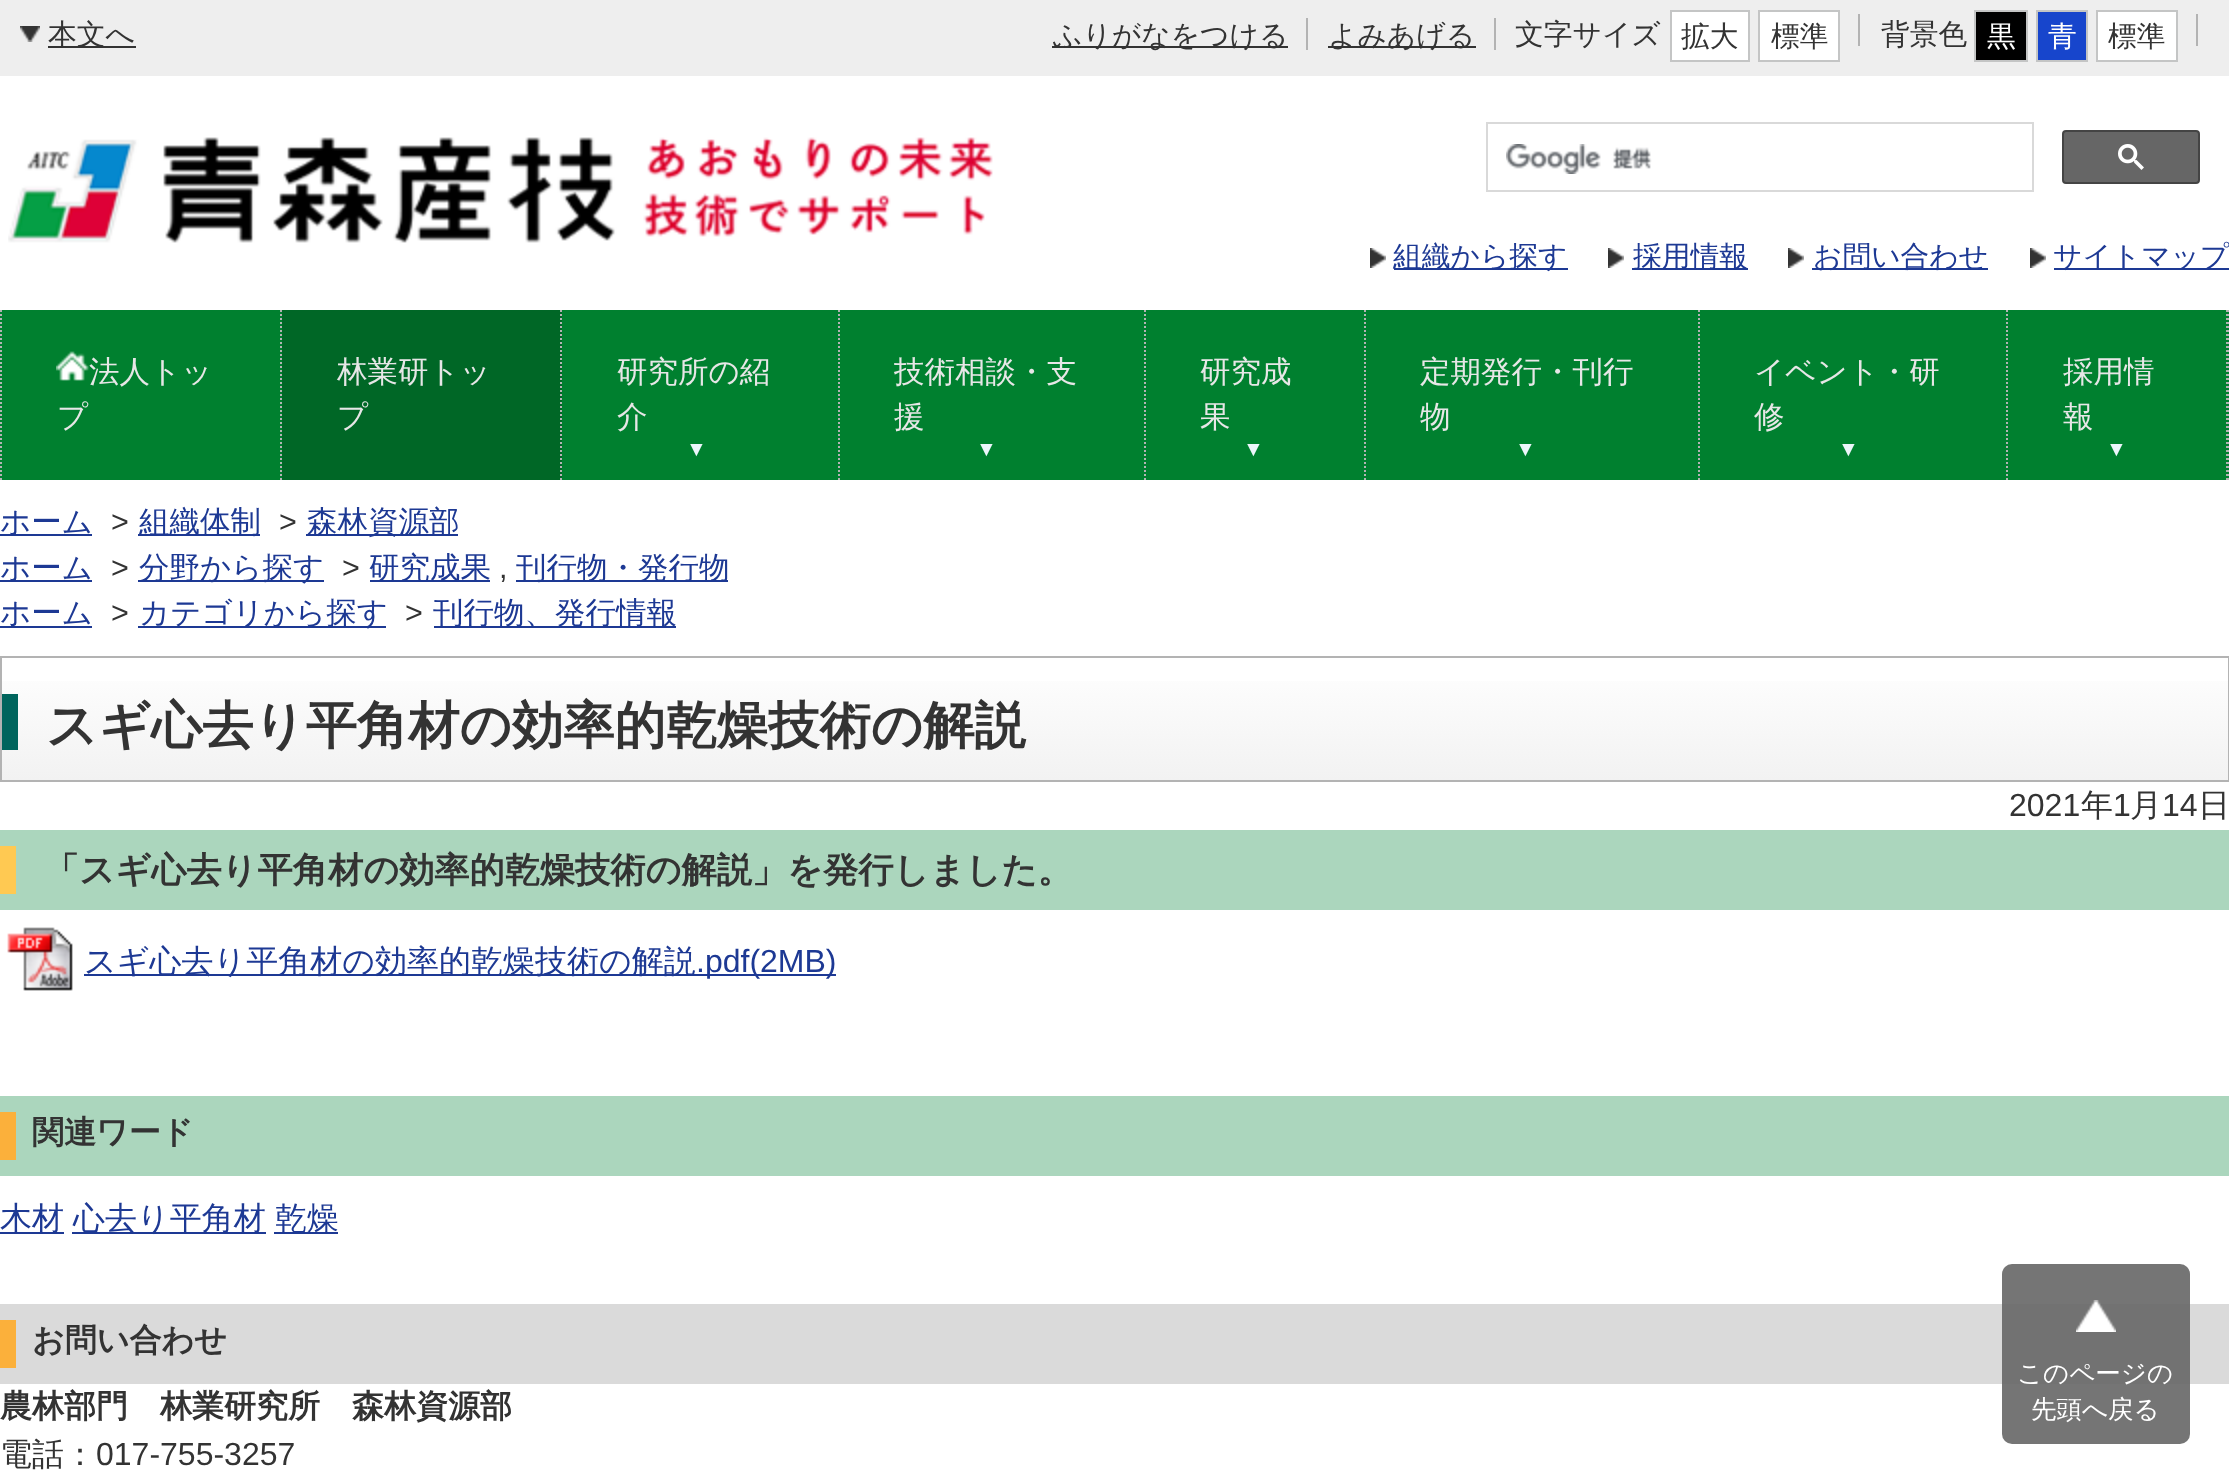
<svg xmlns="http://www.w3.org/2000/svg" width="2229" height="1484">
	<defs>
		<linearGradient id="g1" gradientUnits="userSpaceOnUse" x1="1115" y1="658" x2="1115" y2="780"><stop offset="0" stop-color="#FFFFFF" /><stop offset="1" stop-color="#F2F2F2" /></linearGradient>
	</defs>
	<rect width="100%" height="100%" fill="#FFFFFF" />
	<rect x="0" y="0" width="2229" height="76" fill="#EEEEEE" />
	<image x="20" y="26" width="20" height="16" href="assets/img1.png" />
	<rect x="48" y="46" width="88" height="2" fill="#333333" />
	<text x="48" y="44" font-family="WenQuanYi Zen Hei" font-size="28.75" font-weight="500" fill="#333333">本文へ</text>
	<rect x="1052" y="46" width="236" height="2" fill="#333333" />
	<text x="1053" y="45" font-family="WenQuanYi Zen Hei" font-size="28.75" font-weight="500" fill="#333333">ふりがなをつける</text>
	<rect x="1306" y="18" width="2" height="32" fill="#B3B3B3" />
	<rect x="1328" y="46" width="148" height="2" fill="#333333" />
	<text x="1328" y="45" font-family="WenQuanYi Zen Hei" font-size="28.75" font-weight="500" fill="#333333">よみあげる</text>
	<rect x="1494" y="18" width="2" height="32" fill="#B3B3B3" />
	<text x="1515" y="44" font-family="WenQuanYi Zen Hei" font-size="28.75" font-weight="500" fill="#333333">文字サイズ</text>
	<rect x="1671" y="11" width="78" height="50" fill="#FFFFFF" stroke="#C4C5C5" stroke-width="2" />
	<text x="1681" y="46" font-family="WenQuanYi Zen Hei" font-size="28.75" font-weight="500" fill="#333333">拡大</text>
	<rect x="1759" y="11" width="80" height="50" fill="#FFFFFF" stroke="#C4C5C5" stroke-width="2" />
	<text x="1771" y="46" font-family="WenQuanYi Zen Hei" font-size="28.75" font-weight="500" fill="#333333">標準</text>
	<rect x="1858" y="14" width="2" height="32" fill="#B3B3B3" />
	<text x="1881" y="44" font-family="WenQuanYi Zen Hei" font-size="28.75" font-weight="500" fill="#333333">背景色</text>
	<rect x="1975" y="11" width="52" height="50" fill="#000000" stroke="#C4C5C5" stroke-width="2" />
	<text x="1987" y="46" font-family="WenQuanYi Zen Hei" font-size="28.75" font-weight="500" fill="#FFFFFF">黒</text>
	<rect x="2037" y="11" width="50" height="50" fill="#1745CC" stroke="#C4C5C5" stroke-width="2" />
	<text x="2048" y="46" font-family="WenQuanYi Zen Hei" font-size="28.75" font-weight="500" fill="#FFFFFF">青</text>
	<rect x="2097" y="11" width="80" height="50" fill="#FFFFFF" stroke="#C4C5C5" stroke-width="2" />
	<text x="2108" y="46" font-family="WenQuanYi Zen Hei" font-size="28.75" font-weight="500" fill="#333333">標準</text>
	<rect x="2196" y="14" width="2" height="32" fill="#B3B3B3" />
	<image x="8" y="137" width="985" height="106" href="assets/img2.png" />
	<rect x="1487" y="123" width="546" height="68" fill="none" stroke="#D9D9D9" stroke-width="2" />
	<image x="1506" y="144" width="146" height="30" href="assets/img3.png" />
	<rect x="2063" y="131" width="136" height="52" rx="3" fill="#666666" stroke="#444444" stroke-width="2" />
	<image x="2118" y="144" width="26" height="26" href="assets/img4.png" />
	<image x="1370" y="248" width="16" height="20" href="assets/img5.png" />
	<rect x="1394" y="268" width="174" height="2" fill="#1D3994" />
	<text x="1393" y="266" font-family="WenQuanYi Zen Hei" font-size="28.75" font-weight="500" fill="#1D3994">組織から探す</text>
	<image x="1608" y="248" width="16" height="20" href="assets/img5.png" />
	<rect x="1632" y="268" width="116" height="2" fill="#1D3994" />
	<text x="1633" y="266" font-family="WenQuanYi Zen Hei" font-size="28.75" font-weight="500" fill="#1D3994">採用情報</text>
	<image x="1788" y="248" width="16" height="20" href="assets/img5.png" />
	<rect x="1812" y="268" width="176" height="2" fill="#1D3994" />
	<text x="1813" y="266" font-family="WenQuanYi Zen Hei" font-size="28.75" font-weight="500" fill="#1D3994">お問い合わせ</text>
	<image x="2030" y="248" width="16" height="20" href="assets/img5.png" />
	<rect x="2054" y="268" width="175" height="2" fill="#1D3994" />
	<text x="2053" y="266" font-family="WenQuanYi Zen Hei" font-size="28.75" font-weight="500" fill="#1D3994">サイトマップ</text>
	<rect x="0" y="310" width="2229" height="170" fill="#00802F" />
	<path d="M2229 310V480" fill="none" stroke="#B4B4B4" stroke-width="2" stroke-dasharray="2 2" />
	<path d="M1 310V480" fill="none" stroke="#B4B4B4" stroke-width="2" stroke-dasharray="2 2" />
	<path d="M281 310V480" fill="none" stroke="#B4B4B4" stroke-width="2" stroke-dasharray="2 2" />
	<image x="56" y="351" width="33" height="30" href="assets/img6.png" />
	<g font-family="WenQuanYi Zen Hei" font-size="30.5" font-weight="500" fill="#E7E7E7">
		<text x="89" y="382">法人トッ</text>
		<text x="57" y="427">プ</text>
	</g>
	<rect x="282" y="310" width="280" height="170" fill="#006726" />
	<path d="M561 310V480" fill="none" stroke="#B4B4B4" stroke-width="2" stroke-dasharray="2 2" />
	<g font-family="WenQuanYi Zen Hei" font-size="30.5" font-weight="500" fill="#E7E7E7">
		<text x="337" y="382">林業研トッ</text>
		<text x="337" y="427">プ</text>
	</g>
	<path d="M839 310V480" fill="none" stroke="#B4B4B4" stroke-width="2" stroke-dasharray="2 2" />
	<g font-family="WenQuanYi Zen Hei" font-size="30.5" font-weight="500" fill="#E7E7E7">
		<text x="617" y="382">研究所の紹</text>
		<text x="617" y="427">介</text>
	</g>
	<text x="686" y="456" font-family="Liberation Sans" font-size="21" fill="#EDF6FB">▼</text>
	<path d="M1145 310V480" fill="none" stroke="#B4B4B4" stroke-width="2" stroke-dasharray="2 2" />
	<g font-family="WenQuanYi Zen Hei" font-size="30.5" font-weight="500" fill="#E7E7E7">
		<text x="894" y="382">技術相談・支</text>
		<text x="894" y="427">援</text>
	</g>
	<text x="976" y="456" font-family="Liberation Sans" font-size="21" fill="#EDF6FB">▼</text>
	<path d="M1365 310V480" fill="none" stroke="#B4B4B4" stroke-width="2" stroke-dasharray="2 2" />
	<g font-family="WenQuanYi Zen Hei" font-size="30.5" font-weight="500" fill="#E7E7E7">
		<text x="1200" y="382">研究成</text>
		<text x="1200" y="427">果</text>
	</g>
	<text x="1243" y="456" font-family="Liberation Sans" font-size="21" fill="#EDF6FB">▼</text>
	<path d="M1699 310V480" fill="none" stroke="#B4B4B4" stroke-width="2" stroke-dasharray="2 2" />
	<g font-family="WenQuanYi Zen Hei" font-size="30.5" font-weight="500" fill="#E7E7E7">
		<text x="1420" y="382">定期発行・刊行</text>
		<text x="1420" y="427">物</text>
	</g>
	<text x="1515" y="456" font-family="Liberation Sans" font-size="21" fill="#EDF6FB">▼</text>
	<path d="M2007 310V480" fill="none" stroke="#B4B4B4" stroke-width="2" stroke-dasharray="2 2" />
	<g font-family="WenQuanYi Zen Hei" font-size="30.5" font-weight="500" fill="#E7E7E7">
		<text x="1754" y="382">イベント・研</text>
		<text x="1754" y="427">修</text>
	</g>
	<text x="1838" y="456" font-family="Liberation Sans" font-size="21" fill="#EDF6FB">▼</text>
	<path d="M2227 310V480" fill="none" stroke="#B4B4B4" stroke-width="2" stroke-dasharray="2 2" />
	<g font-family="WenQuanYi Zen Hei" font-size="30.5" font-weight="500" fill="#E7E7E7">
		<text x="2063" y="382">採用情</text>
		<text x="2063" y="427">報</text>
	</g>
	<text x="2106" y="456" font-family="Liberation Sans" font-size="21" fill="#EDF6FB">▼</text>
	<rect x="0" y="534" width="92" height="2" fill="#1D3994" />
	<text x="0" y="532" font-family="WenQuanYi Zen Hei" font-size="30.5" font-weight="500" fill="#1D3994">ホーム</text>
	<text x="111" y="532" font-family="Liberation Sans" font-size="30.5" fill="#333333">&gt;</text>
	<rect x="138" y="534" width="122" height="2" fill="#1D3994" />
	<text x="139" y="532" font-family="WenQuanYi Zen Hei" font-size="30.5" font-weight="500" fill="#1D3994">組織体制</text>
	<text x="279" y="532" font-family="Liberation Sans" font-size="30.5" fill="#333333">&gt;</text>
	<rect x="306" y="534" width="152" height="2" fill="#1D3994" />
	<text x="307" y="532" font-family="WenQuanYi Zen Hei" font-size="30.5" font-weight="500" fill="#1D3994">森林資源部</text>
	<rect x="0" y="580" width="92" height="2" fill="#1D3994" />
	<text x="0" y="578" font-family="WenQuanYi Zen Hei" font-size="30.5" font-weight="500" fill="#1D3994">ホーム</text>
	<text x="111" y="578" font-family="Liberation Sans" font-size="30.5" fill="#333333">&gt;</text>
	<rect x="138" y="580" width="186" height="2" fill="#1D3994" />
	<text x="139" y="578" font-family="WenQuanYi Zen Hei" font-size="30.5" font-weight="500" fill="#1D3994">分野から探す</text>
	<text x="342" y="578" font-family="Liberation Sans" font-size="30.5" fill="#333333">&gt;</text>
	<rect x="370" y="580" width="120" height="2" fill="#1D3994" />
	<text x="369" y="578" font-family="WenQuanYi Zen Hei" font-size="30.5" font-weight="500" fill="#1D3994">研究成果</text>
	<rect x="516" y="580" width="212" height="2" fill="#1D3994" />
	<text x="516" y="578" font-family="WenQuanYi Zen Hei" font-size="30.5" font-weight="500" fill="#1D3994">刊行物・発行物</text>
	<text x="499" y="578" font-family="Liberation Sans" font-size="30.5" fill="#333333">,</text>
	<rect x="0" y="626" width="92" height="2" fill="#1D3994" />
	<text x="0" y="623" font-family="WenQuanYi Zen Hei" font-size="30.5" font-weight="500" fill="#1D3994">ホーム</text>
	<text x="111" y="623" font-family="Liberation Sans" font-size="30.5" fill="#333333">&gt;</text>
	<rect x="138" y="626" width="248" height="2" fill="#1D3994" />
	<text x="139" y="623" font-family="WenQuanYi Zen Hei" font-size="30.5" font-weight="500" fill="#1D3994">カテゴリから探す</text>
	<text x="405" y="623" font-family="Liberation Sans" font-size="30.5" fill="#333333">&gt;</text>
	<rect x="434" y="626" width="242" height="2" fill="#1D3994" />
	<text x="433" y="623" font-family="WenQuanYi Zen Hei" font-size="30.5" font-weight="500" fill="#1D3994">刊行物、発行情報</text>
	<rect x="2" y="681" width="2226" height="99" fill="url(#g1)" />
	<rect x="1" y="657" width="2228" height="124" fill="none" stroke="#B3B3B3" stroke-width="2" />
	<rect x="2" y="694" width="16" height="56" fill="#00655D" />
	<text x="46" y="743" font-family="WenQuanYi Zen Hei" font-size="51.25" font-weight="700" fill="#333333">スギ心去り平角材の効率的乾燥技術の解説</text>
	<text x="2009" y="816" font-family="Liberation Sans" font-size="32" fill="#333333">2021</text>
	<text x="2081" y="816" font-family="WenQuanYi Zen Hei" font-size="32" font-weight="500" fill="#333333">年</text>
	<text x="2113" y="816" font-family="Liberation Sans" font-size="32" fill="#333333">1</text>
	<text x="2130" y="816" font-family="WenQuanYi Zen Hei" font-size="32" font-weight="500" fill="#333333">月</text>
	<text x="2162" y="816" font-family="Liberation Sans" font-size="32" fill="#333333">14</text>
	<text x="2198" y="816" font-family="WenQuanYi Zen Hei" font-size="32" font-weight="500" fill="#333333">日</text>
	<rect x="0" y="830" width="2229" height="80" fill="#ABD6BD" />
	<rect x="0" y="846" width="16" height="48" fill="#FFC952" />
	<text x="44" y="882" font-family="WenQuanYi Zen Hei" font-size="35.2" font-weight="700" fill="#333333">「スギ心去り平角材の効率的乾燥技術の解説」を発行しました。</text>
	<image x="7" y="927" width="66" height="64" href="assets/img7.png" />
	<rect x="84" y="974" width="752" height="2" fill="#1D3994" />
	<text x="84" y="972" font-family="WenQuanYi Zen Hei" font-size="32" font-weight="500" fill="#1D3994">スギ心去り平角材の効率的乾燥技術の解説</text>
	<text x="696" y="972" font-family="Liberation Sans" font-size="32" fill="#1D3994">.pdf(2MB)</text>
	<rect x="0" y="1096" width="2229" height="80" fill="#ABD6BD" />
	<rect x="0" y="1112" width="16" height="48" fill="#FBB03B" />
	<text x="32" y="1143" font-family="WenQuanYi Zen Hei" font-size="32" font-weight="700" fill="#333333">関連ワード</text>
	<rect x="0" y="1232" width="64" height="2" fill="#1D3994" />
	<text x="0" y="1229" font-family="WenQuanYi Zen Hei" font-size="32" font-weight="500" fill="#1D3994">木材</text>
	<rect x="72" y="1232" width="194" height="2" fill="#1D3994" />
	<text x="73" y="1229" font-family="WenQuanYi Zen Hei" font-size="32" font-weight="500" fill="#1D3994">心去り平角材</text>
	<rect x="274" y="1232" width="64" height="2" fill="#1D3994" />
	<text x="275" y="1229" font-family="WenQuanYi Zen Hei" font-size="32" font-weight="500" fill="#1D3994">乾燥</text>
	<rect x="0" y="1304" width="2229" height="80" fill="#DADADA" />
	<rect x="0" y="1320" width="16" height="48" fill="#FBB03B" />
	<g font-family="WenQuanYi Zen Hei" font-size="32" font-weight="700" fill="#333333">
		<text x="32" y="1351">お問い合わせ</text>
		<text x="0" y="1417">農林部門　林業研究所　森林資源部</text>
	</g>
	<text x="0" y="1465" font-family="WenQuanYi Zen Hei" font-size="32" font-weight="500" fill="#333333">電話：</text>
	<text x="96" y="1465" font-family="Liberation Sans" font-size="32" fill="#333333">017-755-3257</text>
	<rect x="2002" y="1264" width="188" height="180" rx="10" fill="#666666" fill-opacity="0.9" />
	<image x="2076" y="1300" width="40" height="32" href="assets/img8.png" />
	<g font-family="WenQuanYi Zen Hei" font-size="25.5" font-weight="500" fill="#FFFFFF">
		<text x="2017" y="1382">このページの</text>
		<text x="2031" y="1418">先頭へ戻る</text>
	</g>
</svg>
